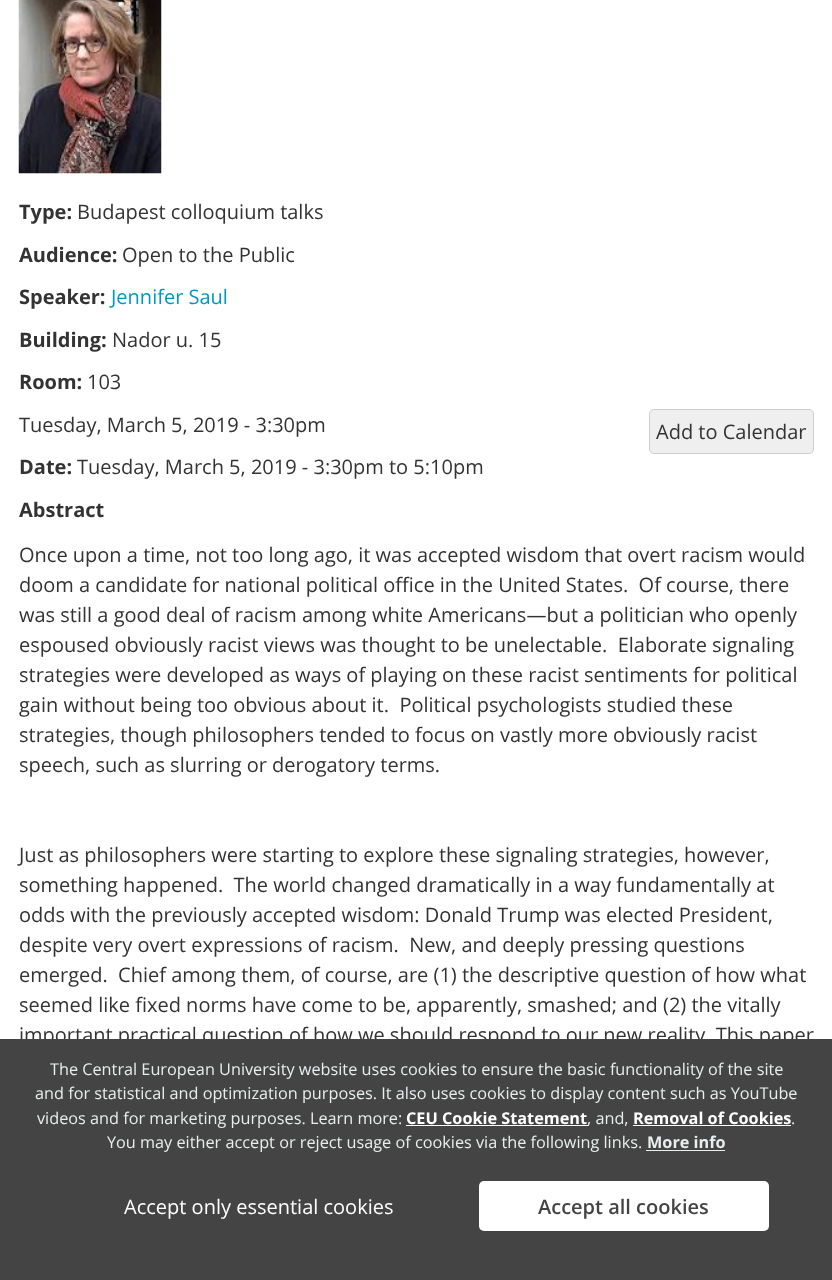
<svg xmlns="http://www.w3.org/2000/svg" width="832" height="1280">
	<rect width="100%" height="100%" fill="#FFFFFF" />
	<image x="18" y="0" width="144" height="174" href="assets/img1.png" />
	<text x="19" y="219" font-family="Open Sans" font-size="20" font-weight="700" fill="#333333">Type:</text>
	<text x="77" y="219" font-family="Open Sans" font-size="20" fill="#333333">Budapest colloquium talks</text>
	<text x="19" y="262" font-family="Open Sans" font-size="20" font-weight="700" fill="#333333">Audience:</text>
	<text x="122" y="262" font-family="Open Sans" font-size="20" fill="#333333">Open to the Public</text>
	<text x="19" y="304" font-family="Open Sans" font-size="20" font-weight="700" fill="#333333">Speaker:</text>
	<text x="111" y="304" font-family="Open Sans" font-size="20" fill="#0098C3">Jennifer Saul</text>
	<text x="19" y="347" font-family="Open Sans" font-size="20" font-weight="700" fill="#333333">Building:</text>
	<text x="112" y="347" font-family="Open Sans" font-size="20" fill="#333333">Nador u. 15</text>
	<text x="19" y="389" font-family="Open Sans" font-size="20" font-weight="700" fill="#333333">Room:</text>
	<g font-family="Open Sans" font-size="20" fill="#333333">
		<text x="87" y="389">103</text>
		<text x="19" y="432">Tuesday, March 5, 2019 - 3:30pm</text>
	</g>
	<rect x="649.5" y="409.5" width="164" height="44" rx="4.5" fill="#EFEFEF" stroke="#CDCDCD" />
	<text x="656" y="439" font-family="Open Sans" font-size="20" fill="#333333">Add to Calendar</text>
	<text x="19" y="474" font-family="Open Sans" font-size="20" font-weight="700" fill="#333333">Date:</text>
	<text x="77" y="474" font-family="Open Sans" font-size="20" fill="#333333">Tuesday, March 5, 2019 - 3:30pm to 5:10pm</text>
	<text x="19" y="517" font-family="Open Sans" font-size="20" font-weight="700" fill="#333333">Abstract</text>
	<g font-family="Open Sans" font-size="20" fill="#333333">
		<text x="19" y="562">Once upon a time, not too long ago, it was accepted wisdom that overt racism would</text>
		<text x="19" y="592" xml:space="preserve">doom a candidate for national political office in the United States.  Of course, there</text>
		<text x="19" y="622">was still a good deal of racism among white Americans—but a politician who openly</text>
		<text x="19" y="652" xml:space="preserve">espoused obviously racist views was thought to be unelectable.  Elaborate signaling</text>
		<text x="19" y="682">strategies were developed as ways of playing on these racist sentiments for political</text>
		<text x="19" y="712" xml:space="preserve">gain without being too obvious about it.  Political psychologists studied these</text>
		<text x="19" y="742">strategies, though philosophers tended to focus on vastly more obviously racist</text>
		<text x="19" y="772">speech, such as slurring or derogatory terms.</text>
		<text x="19" y="862">Just as philosophers were starting to explore these signaling strategies, however,</text>
		<text x="19" y="892" xml:space="preserve">something happened.  The world changed dramatically in a way fundamentally at</text>
		<text x="19" y="922">odds with the previously accepted wisdom: Donald Trump was elected President,</text>
		<text x="19" y="952" xml:space="preserve">despite very overt expressions of racism.  New, and deeply pressing questions</text>
		<text x="19" y="982" xml:space="preserve">emerged.  Chief among them, of course, are (1) the descriptive question of how what</text>
		<text x="19" y="1012">seemed like fixed norms have come to be, apparently, smashed; and (2) the vitally</text>
		<text x="19" y="1042">important practical question of how we should respond to our new reality. This paper</text>
	</g>
	<rect x="0" y="1039" width="832" height="241" fill="#444444" />
	<g font-family="Open Sans" font-size="16.25" fill="#E8EDEE">
		<text x="50" y="1075">The Central European University website uses cookies to ensure the basic functionality of the site</text>
		<text x="35" y="1099">and for statistical and optimization purposes. It also uses cookies to display content such as YouTube</text>
		<text x="37" y="1124">videos and for marketing purposes. Learn more:</text>
	</g>
	<text x="406" y="1124" font-family="Open Sans" font-size="16.25" font-weight="700" fill="#FFFFFF">CEU Cookie Statement</text>
	<text x="587" y="1124" font-family="Open Sans" font-size="16.25" fill="#E8EDEE">, and,</text>
	<rect x="406" y="1125" width="182" height="1" fill="#FFFFFF" />
	<text x="633" y="1124" font-family="Open Sans" font-size="16.25" font-weight="700" fill="#FFFFFF">Removal of Cookies</text>
	<text x="791" y="1124" font-family="Open Sans" font-size="16.25" fill="#E8EDEE">.</text>
	<rect x="633" y="1125" width="158" height="1" fill="#FFFFFF" />
	<text x="107" y="1148" font-family="Open Sans" font-size="16.25" fill="#E8EDEE">You may either accept or reject usage of cookies via the following links.</text>
	<text x="647" y="1148" font-family="Open Sans" font-size="16.25" font-weight="700" fill="#E8EDEE">More info</text>
	<rect x="646" y="1150" width="79" height="1" fill="#E8EDEE" />
	<text x="124" y="1214" font-family="Open Sans" font-size="20" fill="#FFFFFF">Accept only essential cookies</text>
	<rect x="479" y="1181" width="290" height="50" rx="5" fill="#FFFFFF" />
	<text x="538" y="1214" font-family="Open Sans" font-size="20" font-weight="600" fill="#444444">Accept all cookies</text>
</svg>
